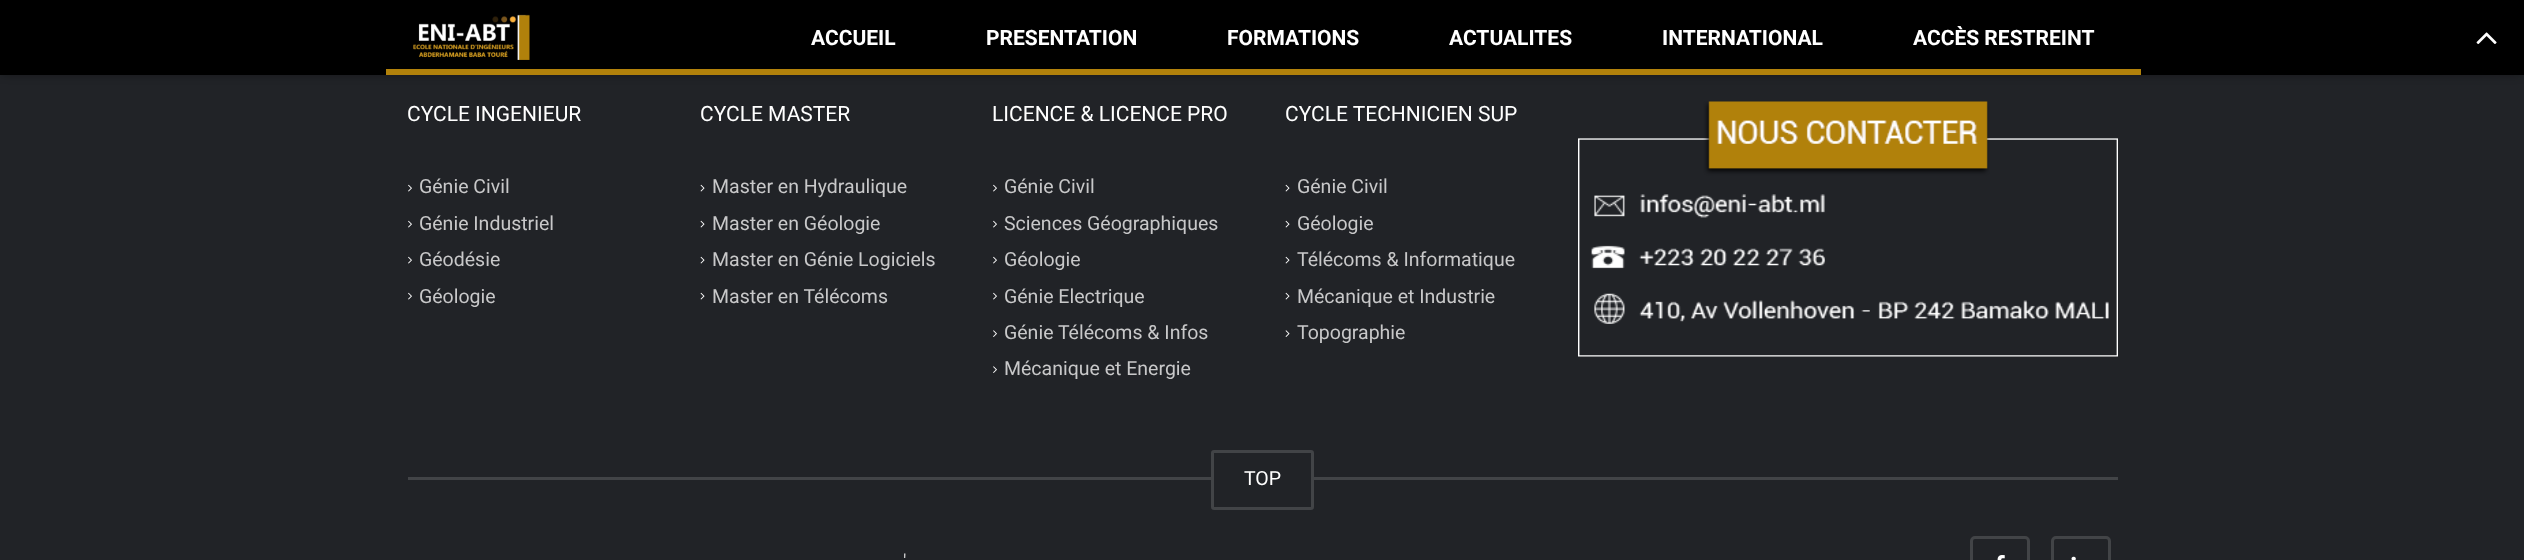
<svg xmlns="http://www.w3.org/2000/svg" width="2524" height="560">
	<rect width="100%" height="100%" fill="#212327" />
	<rect x="2" y="2" width="2521" height="72" fill="#000000" fill-opacity="0.4" filter="blur(5px)" />
	<rect x="0" y="0" width="2524" height="75" fill="#000000" />
	<rect x="386" y="69" width="1755" height="6" fill="#B1810B" />
	<image x="413" y="14" width="117" height="46" href="assets/img1.png" />
	<g font-family="Roboto" font-size="21" font-weight="700" fill="#FFFFFF">
		<text x="811" y="45">ACCUEIL</text>
		<text x="986" y="45">PRESENTATION</text>
		<text x="1227" y="45">FORMATIONS</text>
		<text x="1449" y="45">ACTUALITES</text>
		<text x="1662" y="45">INTERNATIONAL</text>
		<text x="1913" y="45">ACCÈS RESTREINT</text>
	</g>
	<image x="2476" y="32" width="21" height="12" href="assets/img2.png" />
	<text x="407" y="121" font-family="Roboto" font-size="21" fill="#FFFFFF">CYCLE INGENIEUR</text>
	<image x="408" y="184" width="4" height="8" href="assets/img3.png" />
	<text x="419" y="193" font-family="Roboto" font-size="19.5" fill="#C8C8C9">Génie Civil</text>
	<image x="408" y="220" width="4" height="8" href="assets/img3.png" />
	<text x="419" y="230" font-family="Roboto" font-size="19.5" fill="#C8C8C9">Génie Industriel</text>
	<image x="408" y="256" width="4" height="8" href="assets/img3.png" />
	<text x="419" y="266" font-family="Roboto" font-size="19.5" fill="#C8C8C9">Géodésie</text>
	<image x="408" y="292" width="4" height="8" href="assets/img3.png" />
	<text x="419" y="303" font-family="Roboto" font-size="19.5" fill="#C8C8C9">Géologie</text>
	<text x="700" y="121" font-family="Roboto" font-size="21" fill="#FFFFFF">CYCLE MASTER</text>
	<image x="700" y="184" width="5" height="8" href="assets/img4.png" />
	<text x="712" y="193" font-family="Roboto" font-size="19.5" fill="#C8C8C9">Master en Hydraulique</text>
	<image x="700" y="220" width="5" height="8" href="assets/img4.png" />
	<text x="712" y="230" font-family="Roboto" font-size="19.5" fill="#C8C8C9">Master en Géologie</text>
	<image x="700" y="256" width="5" height="8" href="assets/img4.png" />
	<text x="712" y="266" font-family="Roboto" font-size="19.5" fill="#C8C8C9">Master en Génie Logiciels</text>
	<image x="700" y="292" width="5" height="8" href="assets/img4.png" />
	<text x="712" y="303" font-family="Roboto" font-size="19.5" fill="#C8C8C9">Master en Télécoms</text>
	<text x="992" y="121" font-family="Roboto" font-size="21" fill="#FFFFFF">LICENCE &amp; LICENCE PRO</text>
	<image x="993" y="184" width="4" height="8" href="assets/img3.png" />
	<text x="1004" y="193" font-family="Roboto" font-size="19.5" fill="#C8C8C9">Génie Civil</text>
	<image x="993" y="220" width="4" height="8" href="assets/img3.png" />
	<text x="1004" y="230" font-family="Roboto" font-size="19.5" fill="#C8C8C9">Sciences Géographiques</text>
	<image x="993" y="256" width="4" height="8" href="assets/img3.png" />
	<text x="1004" y="266" font-family="Roboto" font-size="19.5" fill="#C8C8C9">Géologie</text>
	<image x="993" y="292" width="4" height="8" href="assets/img3.png" />
	<text x="1004" y="303" font-family="Roboto" font-size="19.5" fill="#C8C8C9">Génie Electrique</text>
	<image x="993" y="330" width="4" height="7" href="assets/img5.png" />
	<text x="1004" y="339" font-family="Roboto" font-size="19.5" fill="#C8C8C9">Génie Télécoms &amp; Infos</text>
	<image x="993" y="366" width="4" height="7" href="assets/img5.png" />
	<text x="1004" y="375" font-family="Roboto" font-size="19.5" fill="#C8C8C9">Mécanique et Energie</text>
	<text x="1285" y="121" font-family="Roboto" font-size="21" fill="#FFFFFF">CYCLE TECHNICIEN SUP</text>
	<image x="1285" y="184" width="5" height="8" href="assets/img4.png" />
	<text x="1297" y="193" font-family="Roboto" font-size="19.5" fill="#C8C8C9">Génie Civil</text>
	<image x="1285" y="220" width="5" height="8" href="assets/img4.png" />
	<text x="1297" y="230" font-family="Roboto" font-size="19.5" fill="#C8C8C9">Géologie</text>
	<image x="1285" y="256" width="5" height="8" href="assets/img4.png" />
	<text x="1297" y="266" font-family="Roboto" font-size="19.5" fill="#C8C8C9">Télécoms &amp; Informatique</text>
	<image x="1285" y="292" width="5" height="8" href="assets/img4.png" />
	<text x="1297" y="303" font-family="Roboto" font-size="19.5" fill="#C8C8C9">Mécanique et Industrie</text>
	<image x="1285" y="330" width="5" height="7" href="assets/img6.png" />
	<text x="1297" y="339" font-family="Roboto" font-size="19.5" fill="#C8C8C9">Topographie</text>
	<image x="1578" y="101" width="540" height="256" href="assets/img7.png" />
	<rect x="408" y="477" width="1710" height="3" fill="#424447" />
	<rect x="1212.5" y="451.5" width="100" height="57" rx="1.5" fill="#212327" stroke="#424447" stroke-width="3" />
	<text x="1244" y="485" font-family="Roboto" font-size="19.5" fill="#FFFFFF">TOP</text>
	<text x="903" y="568" font-family="Roboto" font-size="19.5" fill="#C8C8C9">'</text>
	<rect x="1971.5" y="537.5" width="57" height="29" rx="3.5" fill="none" stroke="#424447" stroke-width="3" />
	<image x="1997" y="555" width="8" height="5" href="assets/img8.png" />
	<rect x="2052.5" y="537.5" width="57" height="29" rx="3.5" fill="none" stroke="#424447" stroke-width="3" />
	<image x="2071" y="556" width="5" height="4" href="assets/img9.png" />
</svg>
